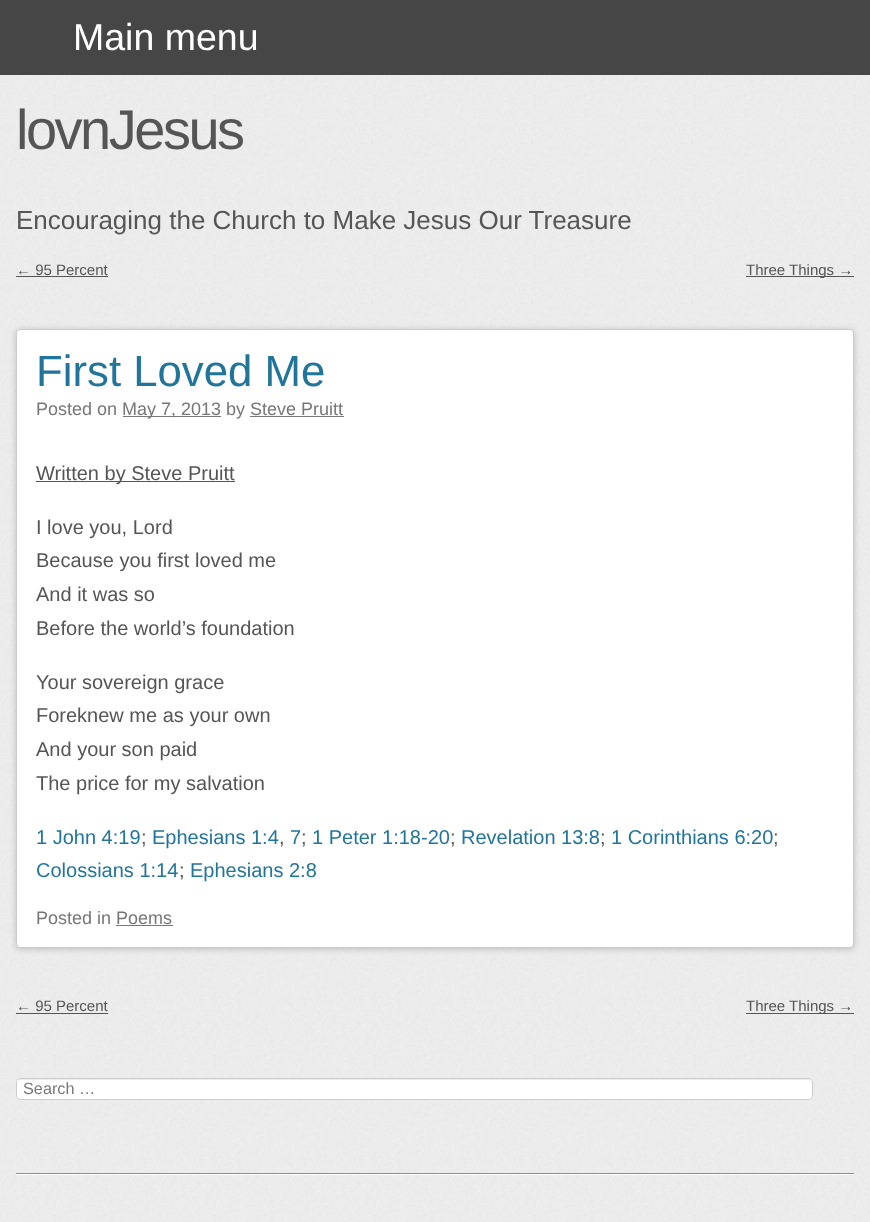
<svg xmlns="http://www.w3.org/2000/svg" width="870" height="1222">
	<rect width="100%" height="100%" fill="#F0F0F0" />
	<image x="0" y="75" width="870" height="1147" href="assets/img1.png" />
	<rect x="0" y="0" width="870" height="75" fill="#464646" />
	<text x="73" y="50" font-family="Liberation Sans" font-size="37.5" fill="#FFFFFF">Main menu</text>
	<text x="16" y="149" font-family="Liberation Sans" font-size="56" letter-spacing="-2.5" fill="#555555">lovnJesus</text>
	<text x="16" y="229" font-family="Liberation Sans" font-size="26" fill="#555555">Encouraging the Church to Make Jesus Our Treasure</text>
	<text x="16" y="275" font-family="Liberation Sans" font-size="15" fill="#555555">← 95 Percent</text>
	<rect x="16" y="276" width="92" height="1" fill="#555555" />
	<rect x="746" y="276" width="108" height="1" fill="#555555" />
	<text x="746" y="275" font-family="Liberation Sans" font-size="15" fill="#555555">Three Things →</text>
	<rect x="16" y="330" width="838" height="619" rx="4" fill="#000000" fill-opacity="0.2" filter="blur(3px)" />
	<rect x="16.5" y="329.5" width="837" height="618" rx="3.5" fill="#FFFFFF" stroke="#CCCCCC" />
	<text x="36" y="386" font-family="Liberation Sans" font-size="43.75" fill="#21759B">First Loved Me</text>
	<text x="36" y="415" font-family="Liberation Sans" font-size="18" fill="#777777">Posted on</text>
	<rect x="123" y="416" width="98" height="1" fill="#777777" />
	<text x="122" y="415" font-family="Liberation Sans" font-size="18" fill="#777777">May 7, 2013 by Steve Pruitt</text>
	<rect x="250" y="416" width="94" height="1" fill="#777777" />
	<rect x="36" y="481" width="199" height="1" fill="#555555" />
	<g font-family="Liberation Sans" font-size="20" fill="#555555">
		<text x="36" y="480">Written by Steve Pruitt</text>
		<text x="36" y="534">I love you, Lord</text>
		<text x="36" y="567">Because you first loved me</text>
		<text x="36" y="601">And it was so</text>
		<text x="36" y="635">Before the world’s foundation</text>
		<text x="36" y="689">Your sovereign grace</text>
		<text x="36" y="722">Foreknew me as your own</text>
		<text x="36" y="756">And your son paid</text>
		<text x="36" y="790">The price for my salvation</text>
	</g>
	<text x="36" y="844" font-family="Liberation Sans" font-size="20" fill="#21759B">1 John 4:19</text>
	<text x="141" y="844" font-family="Liberation Sans" font-size="20" fill="#555555">;</text>
	<text x="152" y="844" font-family="Liberation Sans" font-size="20" fill="#21759B">Ephesians 1:4</text>
	<text x="279" y="844" font-family="Liberation Sans" font-size="20" fill="#555555">,</text>
	<text x="290" y="844" font-family="Liberation Sans" font-size="20" fill="#21759B">7</text>
	<text x="301" y="844" font-family="Liberation Sans" font-size="20" fill="#555555">;</text>
	<text x="312" y="844" font-family="Liberation Sans" font-size="20" fill="#21759B">1 Peter 1:18-20</text>
	<text x="450" y="844" font-family="Liberation Sans" font-size="20" fill="#555555">;</text>
	<text x="461" y="844" font-family="Liberation Sans" font-size="20" fill="#21759B">Revelation 13:8</text>
	<text x="600" y="844" font-family="Liberation Sans" font-size="20" fill="#555555">;</text>
	<text x="611" y="844" font-family="Liberation Sans" font-size="20" fill="#21759B">1 Corinthians 6:20</text>
	<text x="773" y="844" font-family="Liberation Sans" font-size="20" fill="#555555">;</text>
	<text x="36" y="877" font-family="Liberation Sans" font-size="20" fill="#21759B">Colossians 1:14</text>
	<text x="179" y="877" font-family="Liberation Sans" font-size="20" fill="#555555">;</text>
	<text x="190" y="877" font-family="Liberation Sans" font-size="20" fill="#21759B">Ephesians 2:8</text>
	<text x="36" y="924" font-family="Liberation Sans" font-size="18" fill="#777777">Posted in Poems</text>
	<rect x="116" y="925" width="57" height="1" fill="#777777" />
	<text x="16" y="1011" font-family="Liberation Sans" font-size="15" fill="#555555">← 95 Percent</text>
	<rect x="16" y="1013" width="92" height="1" fill="#555555" />
	<rect x="746" y="1013" width="108" height="1" fill="#555555" />
	<text x="746" y="1011" font-family="Liberation Sans" font-size="15" fill="#555555">Three Things →</text>
	<path d="M16 1079V1175H854V1079V1174H16Z" fill="#FFFFFF" />
	<rect x="16" y="1173" width="838" height="1" fill="#6B97BF" />
	<rect x="16" y="1078" width="797" height="22" rx="4" fill="#FFFFFF" />
	<path d="M20 1080H809C810 1080 811 1081 811 1082C811 1080 810 1079 808 1079H20C19 1079 18 1080 18 1082C18 1081 19 1080 20 1080Z" fill="#ECECEC" />
	<rect x="16.5" y="1078.5" width="796" height="21" rx="3.5" fill="none" stroke="#CCCCCC" />
	<text x="23" y="1094" font-family="Liberation Sans" font-size="16.25" fill="#777777">Search …</text>
</svg>
